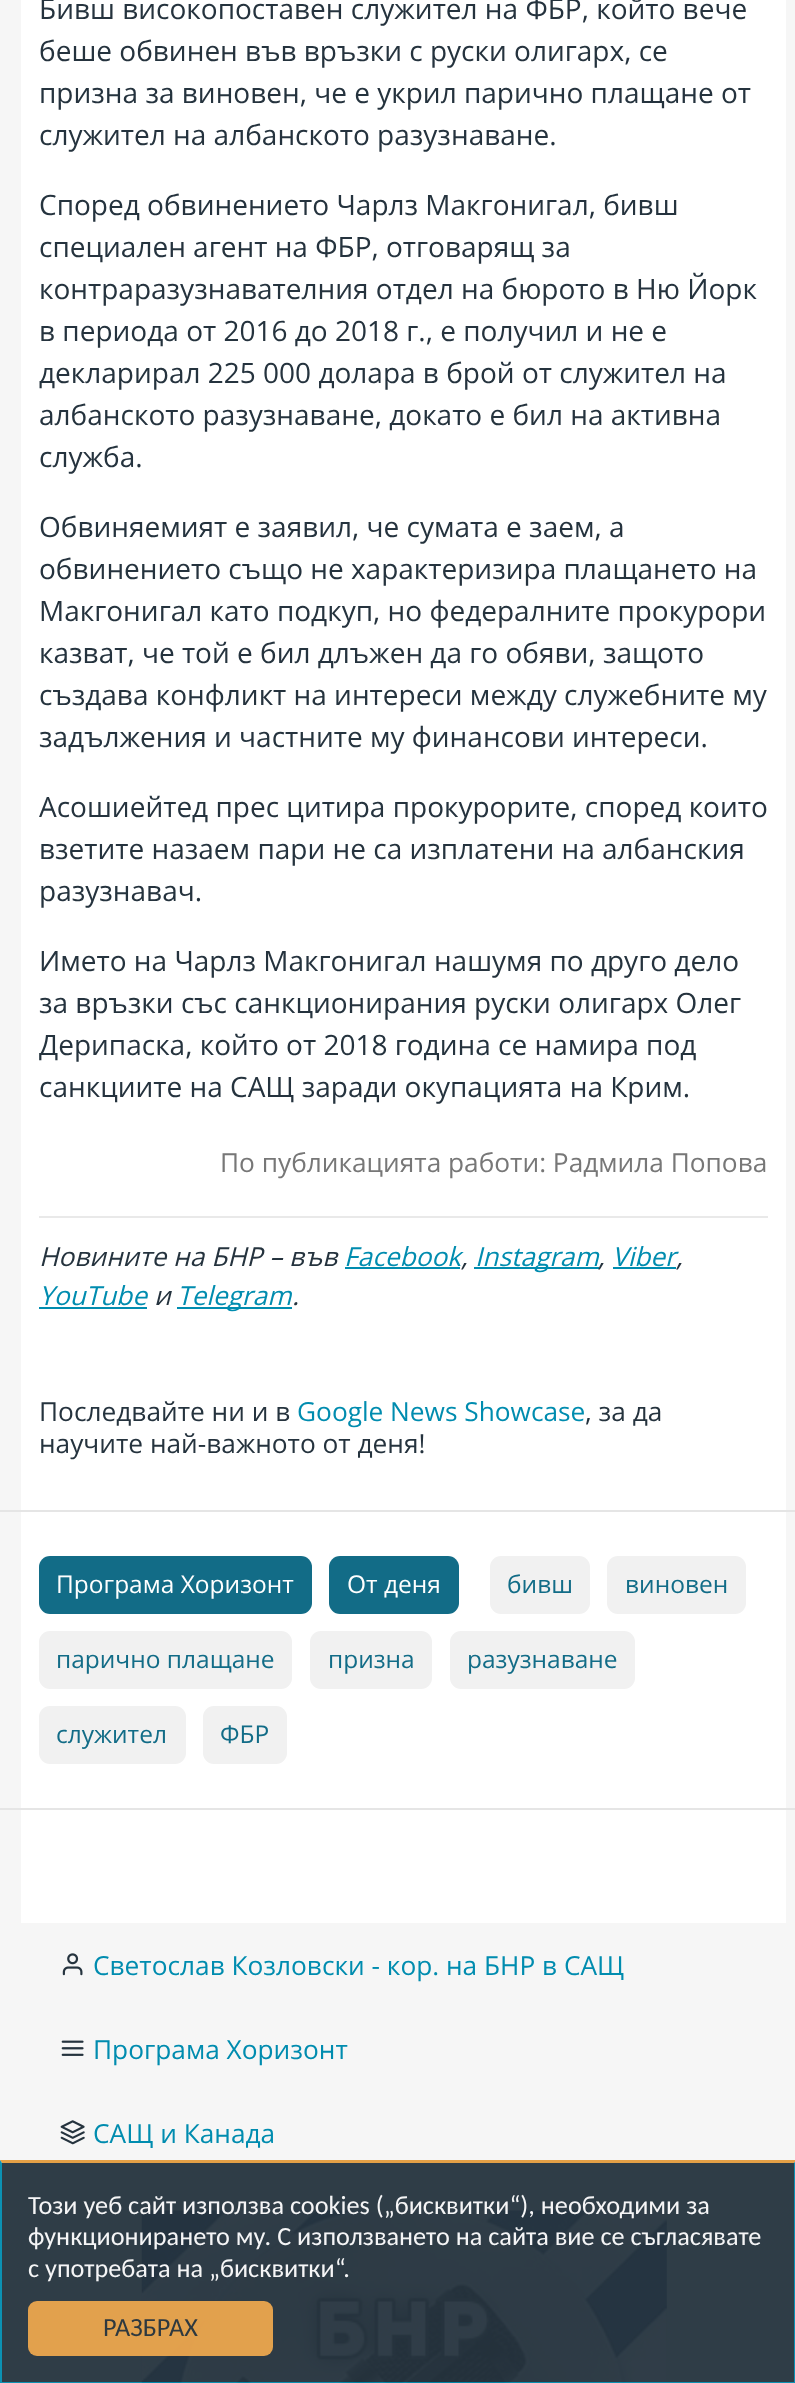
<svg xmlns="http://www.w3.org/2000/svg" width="795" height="2383">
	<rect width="100%" height="100%" fill="#F6F6F6" />
	<rect x="2" y="2163" width="792" height="219" fill="#2F3D47" />
	<rect x="21" y="0" width="765" height="1923" fill="#FFFFFF" />
	<g font-family="Open Sans" font-size="28" fill="#25333E">
		<text x="39" y="19">Бивш високопоставен служител на ФБР, който вече</text>
		<text x="39" y="61">беше обвинен във връзки с руски олигарх, се</text>
		<text x="39" y="103">призна за виновен, че е укрил парично плащане от</text>
		<text x="39" y="145">служител на албанското разузнаване.</text>
		<text x="39" y="215">Според обвинението Чарлз Макгонигал, бивш</text>
		<text x="39" y="257">специален агент на ФБР, отговарящ за</text>
		<text x="39" y="299">контраразузнавателния отдел на бюрото в Ню Йорк</text>
		<text x="39" y="341">в периода от 2016 до 2018 г., е получил и не е</text>
		<text x="39" y="383">декларирал 225 000 долара в брой от служител на</text>
		<text x="39" y="425">албанското разузнаване, докато е бил на активна</text>
		<text x="39" y="467">служба.</text>
		<text x="39" y="537">Обвиняемият е заявил, че сумата е заем, а</text>
		<text x="39" y="579">обвинението също не характеризира плащането на</text>
		<text x="39" y="621">Макгонигал като подкуп, но федералните прокурори</text>
		<text x="39" y="663">казват, че той е бил длъжен да го обяви, защото</text>
		<text x="39" y="705">създава конфликт на интереси между служебните му</text>
		<text x="39" y="747">задължения и частните му финансови интереси.</text>
		<text x="39" y="817">Асошиейтед прес цитира прокурорите, според които</text>
		<text x="39" y="859">взетите назаем пари не са изплатени на албанския</text>
		<text x="39" y="901">разузнавач.</text>
		<text x="39" y="971">Името на Чарлз Макгонигал нашумя по друго дело</text>
		<text x="39" y="1013">за връзки със санкционирания руски олигарх Олег</text>
		<text x="39" y="1055">Дерипаска, който от 2018 година се намира под</text>
		<text x="39" y="1097">санкциите на САЩ заради окупацията на Крим.</text>
	</g>
	<text x="220" y="1172" font-family="Open Sans" font-size="26.25" fill="#777777">По публикацията работи: Радмила Попова</text>
	<rect x="39" y="1216" width="729" height="2" fill="#E9E9E9" />
	<text x="39" y="1266" font-family="Open Sans" font-size="26.25" font-style="italic" fill="#25333E">Новините на БНР – във</text>
	<text x="344" y="1266" font-family="Open Sans" font-size="26.25" font-style="italic" fill="#008CAF">Facebook</text>
	<rect x="345" y="1267" width="115" height="2" fill="#008CAF" />
	<rect x="474" y="1267" width="125" height="2" fill="#008CAF" />
	<g font-family="Open Sans" font-size="26.25" font-style="italic" fill="#008CAF">
		<text x="475" y="1266">Instagram</text>
		<text x="612" y="1266">Viber</text>
	</g>
	<rect x="613" y="1267" width="63" height="2" fill="#008CAF" />
	<g font-family="Open Sans" font-size="26.25" font-style="italic" fill="#25333E">
		<text x="461" y="1266">,</text>
		<text x="598" y="1266">,</text>
		<text x="676" y="1266">,</text>
	</g>
	<text x="39" y="1305" font-family="Open Sans" font-size="26.25" font-style="italic" fill="#008CAF">YouTube</text>
	<rect x="39" y="1307" width="108" height="2" fill="#008CAF" />
	<text x="154" y="1305" font-family="Open Sans" font-size="26.25" font-style="italic" fill="#25333E">и</text>
	<rect x="177" y="1307" width="115" height="2" fill="#008CAF" />
	<text x="177" y="1305" font-family="Open Sans" font-size="26.25" font-style="italic" fill="#008CAF">Telegram</text>
	<text x="292" y="1305" font-family="Open Sans" font-size="26.25" font-style="italic" fill="#25333E">.</text>
	<text x="39" y="1421" font-family="Open Sans" font-size="26.25" fill="#25333E">Последвайте ни и в</text>
	<text x="297" y="1421" font-family="Open Sans" font-size="26.25" fill="#008CAF">Google News Showcase</text>
	<g font-family="Open Sans" font-size="26.25" fill="#25333E">
		<text x="585" y="1421">, за да</text>
		<text x="39" y="1453">научите най-важното от деня!</text>
	</g>
	<rect x="0" y="1510" width="795" height="2" fill="#E5E5E5" />
	<rect x="39" y="1556" width="273" height="58" rx="11" fill="#126C87" />
	<text x="56" y="1593" font-family="Open Sans" font-size="24.5" fill="#FFFFFF">Програма Хоризонт</text>
	<rect x="329" y="1556" width="130" height="58" rx="11" fill="#126C87" />
	<text x="347" y="1593" font-family="Open Sans" font-size="24.5" fill="#FFFFFF">От деня</text>
	<rect x="490" y="1556" width="100" height="58" rx="11" fill="#F1F1F1" />
	<text x="507" y="1593" font-family="Open Sans" font-size="24.5" fill="#126C87">бивш</text>
	<rect x="607" y="1556" width="139" height="58" rx="11" fill="#F1F1F1" />
	<text x="625" y="1593" font-family="Open Sans" font-size="24.5" fill="#126C87">виновен</text>
	<rect x="39" y="1631" width="253" height="58" rx="11" fill="#F1F1F1" />
	<text x="56" y="1668" font-family="Open Sans" font-size="24.5" fill="#126C87">парично плащане</text>
	<rect x="310" y="1631" width="122" height="58" rx="11" fill="#F1F1F1" />
	<text x="328" y="1668" font-family="Open Sans" font-size="24.5" fill="#126C87">призна</text>
	<rect x="450" y="1631" width="185" height="58" rx="11" fill="#F1F1F1" />
	<text x="467" y="1668" font-family="Open Sans" font-size="24.5" fill="#126C87">разузнаване</text>
	<rect x="39" y="1706" width="147" height="58" rx="11" fill="#F1F1F1" />
	<text x="56" y="1743" font-family="Open Sans" font-size="24.5" fill="#126C87">служител</text>
	<rect x="203" y="1706" width="84" height="58" rx="11" fill="#F1F1F1" />
	<text x="220" y="1743" font-family="Open Sans" font-size="24.5" fill="#126C87">ФБР</text>
	<rect x="0" y="1808" width="795" height="2" fill="#E5E5E5" />
	<image x="62" y="1953" width="21" height="23" href="assets/img1.png" />
	<text x="93" y="1975" font-family="Open Sans" font-size="26.25" fill="#008CAF">Светослав Козловски - кор. на БНР в САЩ</text>
	<image x="61" y="2040" width="23" height="16" href="assets/img2.png" />
	<text x="93" y="2059" font-family="Open Sans" font-size="26.25" fill="#008CAF">Програма Хоризонт</text>
	<image x="60" y="2120" width="25" height="25" href="assets/img3.png" />
	<text x="93" y="2143" font-family="Open Sans" font-size="26.25" fill="#008CAF">САЩ и Канада</text>
	<image x="141" y="2210" width="526" height="173" href="assets/img4.png" />
	<path d="M0 2160H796L794 2163H2Z" fill="#E4A046" />
	<path d="M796 2160V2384L794 2382V2163Z" fill="#0C91B3" />
	<rect x="0" y="2382" width="795" height="1" fill="#008CAF" fill-opacity="0.95" />
	<path d="M0 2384V2160L2 2163V2382Z" fill="#0C91B3" />
	<g font-family="Carlito" font-size="26.25" fill="#F5F5F6">
		<text x="28" y="2214">Този уеб сайт използва cookies („бисквитки“), необходими за</text>
		<text x="28" y="2245">функционирането му. С използването на сайта вие се съгласявате</text>
		<text x="28" y="2277">с употребата на „бисквитки“.</text>
	</g>
	<rect x="28" y="2301" width="245" height="55" rx="9" fill="#ECA74E" fill-opacity="0.95" />
	<text x="103" y="2336" font-family="Carlito" font-size="26.25" fill="#2E393F">РАЗБРАХ</text>
</svg>
